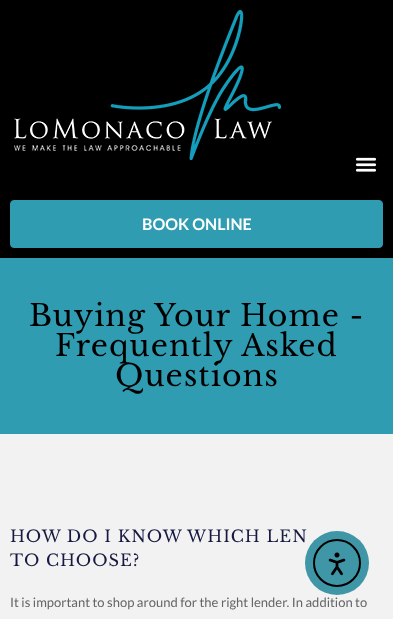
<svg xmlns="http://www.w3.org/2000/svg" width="393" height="619">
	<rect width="100%" height="100%" fill="#F2F2F2" />
	<rect x="0" y="0" width="393" height="258" fill="#000000" />
	<image x="14" y="10" width="267" height="150" href="assets/img1.png" />
	<image x="355" y="157" width="22" height="15" href="assets/img2.png" />
	<rect x="10.5" y="200.5" width="372" height="47" rx="3.5" fill="#2F9CB1" stroke="#2F9CB1" />
	<text x="142" y="230" font-family="Lato" font-size="16" font-weight="700" fill="#FFFFFF">BOOK ONLINE</text>
	<rect x="0" y="258" width="393" height="176" fill="#2F9CB1" />
	<g font-family="Libre Baskerville" font-size="30" letter-spacing="1" fill="#000000">
		<text x="29" y="326">Buying Your Home -</text>
		<text x="55" y="356">Frequently Asked</text>
		<text x="115" y="386">Questions</text>
	</g>
	<g font-family="Libre Baskerville" font-size="16.25" letter-spacing="1" fill="#161940">
		<text x="10" y="542">HOW DO I KNOW WHICH LEN</text>
		<text x="10" y="566">TO CHOOSE?</text>
	</g>
	<text x="10" y="607" font-family="Lato" font-size="13" fill="#656565">It is important to shop around for the right lender. In addition to</text>
	<circle cx="337" cy="563" r="32" fill="#3F96A6" />
	<circle cx="337" cy="563" r="23" fill="none" stroke="#000000" stroke-width="2" />
	<image x="328" y="552" width="18" height="24" href="assets/img3.png" />
</svg>
